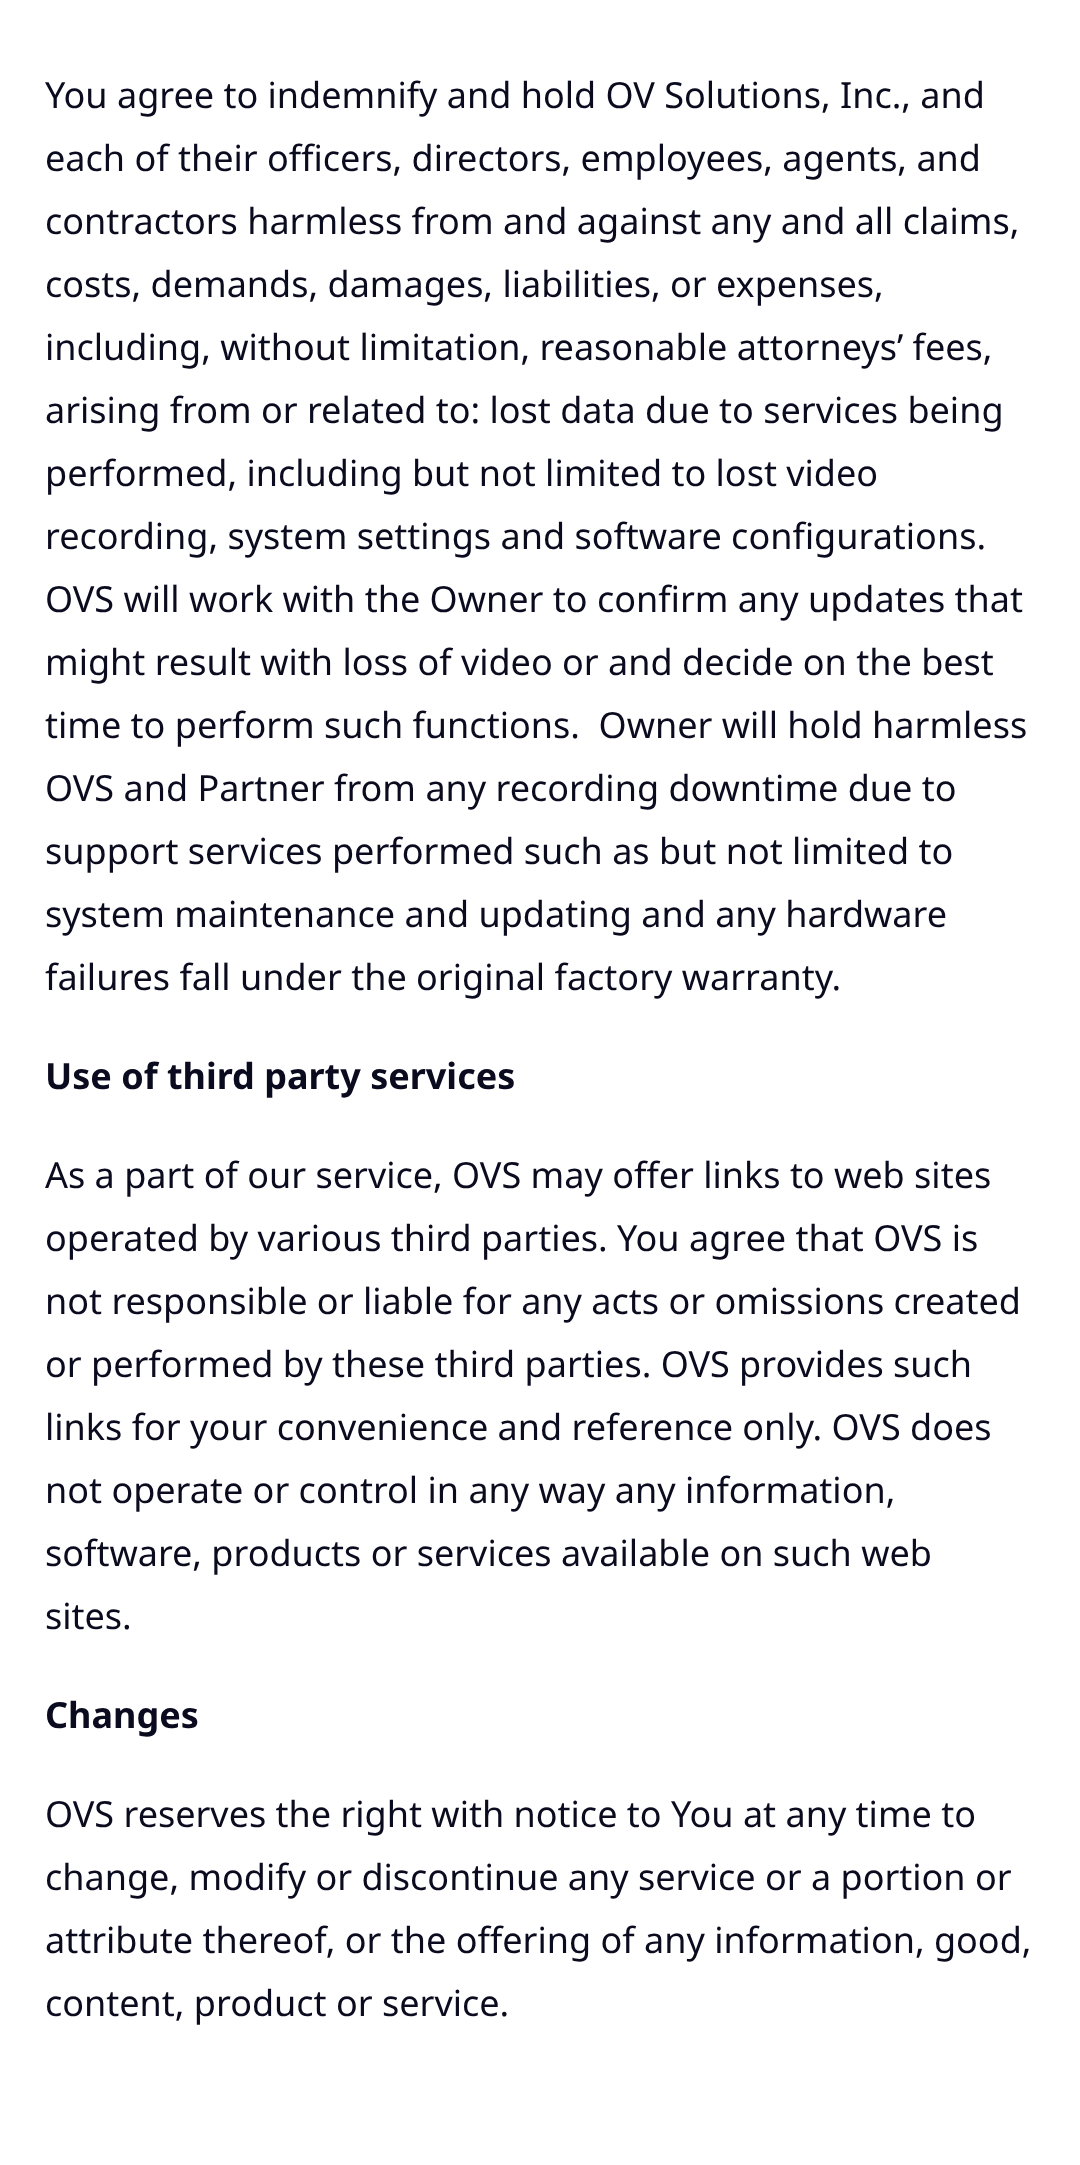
<svg xmlns="http://www.w3.org/2000/svg" width="1080" height="2165">
	<rect width="100%" height="100%" fill="#FFFFFF" />
	<g font-family="Noto Sans" font-size="36" fill="#0B0B1F">
		<text x="45" y="108">You agree to indemnify and hold OV Solutions, Inc., and</text>
		<text x="45" y="171">each of their officers, directors, employees, agents, and</text>
		<text x="45" y="234">contractors harmless from and against any and all claims,</text>
		<text x="45" y="297">costs, demands, damages, liabilities, or expenses,</text>
		<text x="45" y="360">including, without limitation, reasonable attorneys’ fees,</text>
		<text x="45" y="423">arising from or related to: lost data due to services being</text>
		<text x="45" y="486">performed, including but not limited to lost video</text>
		<text x="45" y="549">recording, system settings and software configurations.</text>
		<text x="45" y="612">OVS will work with the Owner to confirm any updates that</text>
		<text x="45" y="675">might result with loss of video or and decide on the best</text>
		<text x="45" y="738" xml:space="preserve">time to perform such functions.  Owner will hold harmless</text>
		<text x="45" y="801">OVS and Partner from any recording downtime due to</text>
		<text x="45" y="864">support services performed such as but not limited to</text>
		<text x="45" y="927">system maintenance and updating and any hardware</text>
		<text x="45" y="990">failures fall under the original factory warranty.</text>
	</g>
	<text x="45" y="1089" font-family="Noto Sans" font-size="36" font-weight="700" fill="#0B0B1F">Use of third party services</text>
	<g font-family="Noto Sans" font-size="36" fill="#0B0B1F">
		<text x="45" y="1188">As a part of our service, OVS may offer links to web sites</text>
		<text x="45" y="1251">operated by various third parties. You agree that OVS is</text>
		<text x="45" y="1314">not responsible or liable for any acts or omissions created</text>
		<text x="45" y="1377">or performed by these third parties. OVS provides such</text>
		<text x="45" y="1440">links for your convenience and reference only. OVS does</text>
		<text x="45" y="1503">not operate or control in any way any information,</text>
		<text x="45" y="1566">software, products or services available on such web</text>
		<text x="45" y="1629">sites.</text>
	</g>
	<text x="45" y="1728" font-family="Noto Sans" font-size="36" font-weight="700" fill="#0B0B1F">Changes</text>
	<g font-family="Noto Sans" font-size="36" fill="#0B0B1F">
		<text x="45" y="1827">OVS reserves the right with notice to You at any time to</text>
		<text x="45" y="1890">change, modify or discontinue any service or a portion or</text>
		<text x="45" y="1953">attribute thereof, or the offering of any information, good,</text>
		<text x="45" y="2016">content, product or service.</text>
	</g>
</svg>
